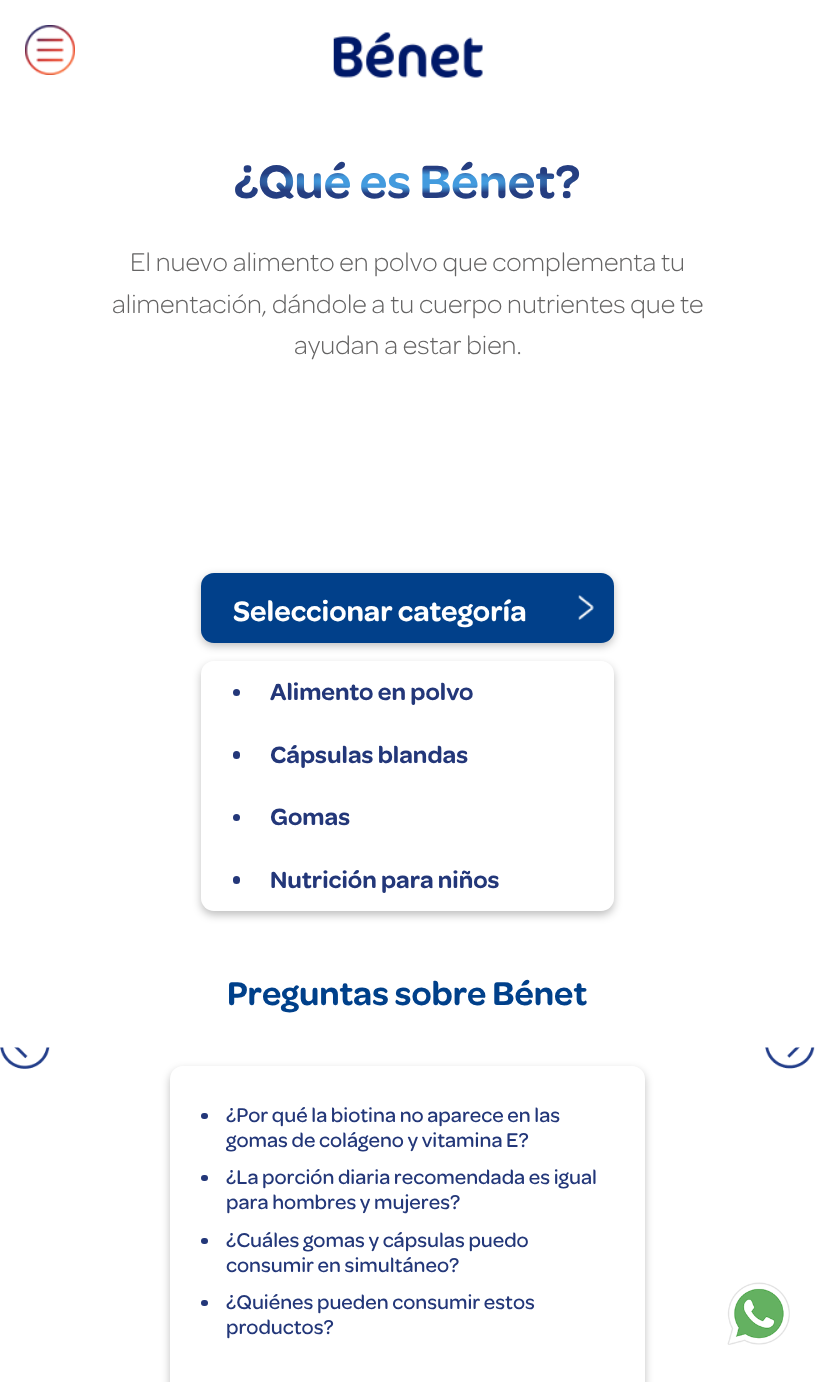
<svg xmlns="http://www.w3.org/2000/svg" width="815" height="1382">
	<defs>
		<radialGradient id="g1" gradientUnits="userSpaceOnUse" cx="0" cy="0" r="1" gradientTransform="matrix(576 0 0 42 408 181)"><stop offset="0.15" stop-color="#439BDE" /><stop offset="0.3" stop-color="#253E81" /></radialGradient>
	</defs>
	<rect width="100%" height="100%" fill="#FFFFFF" />
	<image x="25" y="25" width="50" height="50" href="assets/img1.png" />
	<image x="333" y="32" width="150" height="46" href="assets/img2.png" />
	<text x="234" y="198" font-family="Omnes" font-size="50" font-weight="600" fill="url(#g1)">¿Qué es Bénet?</text>
	<g font-family="Omnes" font-size="27.5" font-weight="300" fill="#656464">
		<text x="130" y="271">El nuevo alimento en polvo que complementa tu</text>
		<text x="112" y="313">alimentación, dándole a tu cuerpo nutrientes que te</text>
		<text x="294" y="354">ayudan a estar bien.</text>
	</g>
	<rect x="201" y="576" width="413" height="70" rx="13" fill="#000000" fill-opacity="0.25" filter="blur(4.5px)" />
	<rect x="201" y="573" width="413" height="70" rx="13" fill="#01408A" />
	<image x="578" y="595" width="16" height="25" href="assets/img3.png" />
	<text x="233" y="621" font-family="Omnes" font-size="30" font-weight="600" fill="#FFFFFF">Seleccionar categoría</text>
	<rect x="201" y="665" width="413" height="250" rx="13" fill="#000000" fill-opacity="0.25" filter="blur(4.5px)" />
	<rect x="201" y="661" width="413" height="250" rx="13" fill="#FFFFFF" />
	<circle cx="236.5" cy="692.5" r="3.5" fill="#233779" />
	<text x="270" y="700" font-family="Omnes" font-size="25" font-weight="600" fill="#233779">Alimento en polvo</text>
	<rect x="233" y="751" width="7" height="8" rx="3.5" fill="#233779" />
	<text x="270" y="763" font-family="Omnes" font-size="25" font-weight="600" fill="#233779">Cápsulas blandas</text>
	<circle cx="236.5" cy="817.5" r="3.5" fill="#233779" />
	<text x="270" y="825" font-family="Omnes" font-size="25" font-weight="600" fill="#233779">Gomas</text>
	<rect x="233" y="876" width="7" height="8" rx="3.5" fill="#233779" />
	<text x="270" y="888" font-family="Omnes" font-size="25" font-weight="600" fill="#233779">Nutrición para niños</text>
	<text x="227" y="1005" font-family="Omnes" font-size="35" font-weight="600" fill="#00408A">Preguntas sobre Bénet</text>
	<image x="0" y="1047" width="50" height="22" href="assets/img4.png" />
	<image x="765" y="1047" width="50" height="22" href="assets/img5.png" />
	<rect x="170" y="1070" width="475" height="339" rx="13" fill="#000000" fill-opacity="0.25" filter="blur(4.5px)" />
	<rect x="170" y="1066" width="475" height="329" rx="13" fill="#FFFFFF" />
	<rect x="201" y="1113" width="7" height="6" rx="3" fill="#233779" />
	<g font-family="Omnes" font-size="21.25" font-weight="500" fill="#233779">
		<text x="226" y="1122">¿Por qué la biotina no aparece en las</text>
		<text x="226" y="1147">gomas de colágeno y vitamina E?</text>
	</g>
	<rect x="201" y="1175" width="7" height="6" rx="3" fill="#233779" />
	<g font-family="Omnes" font-size="21.25" font-weight="500" fill="#233779">
		<text x="226" y="1184">¿La porción diaria recomendada es igual</text>
		<text x="226" y="1209">para hombres y mujeres?</text>
	</g>
	<rect x="201" y="1238" width="7" height="6" rx="3" fill="#233779" />
	<g font-family="Omnes" font-size="21.25" font-weight="500" fill="#233779">
		<text x="226" y="1247">¿Cuáles gomas y cápsulas puedo</text>
		<text x="226" y="1272">consumir en simultáneo?</text>
	</g>
	<rect x="201" y="1300" width="7" height="6" rx="3" fill="#233779" />
	<g font-family="Omnes" font-size="21.25" font-weight="500" fill="#233779">
		<text x="226" y="1309">¿Quiénes pueden consumir estos</text>
		<text x="226" y="1334">productos?</text>
	</g>
	<image x="727" y="1282" width="63" height="63" href="assets/img6.png" />
</svg>
